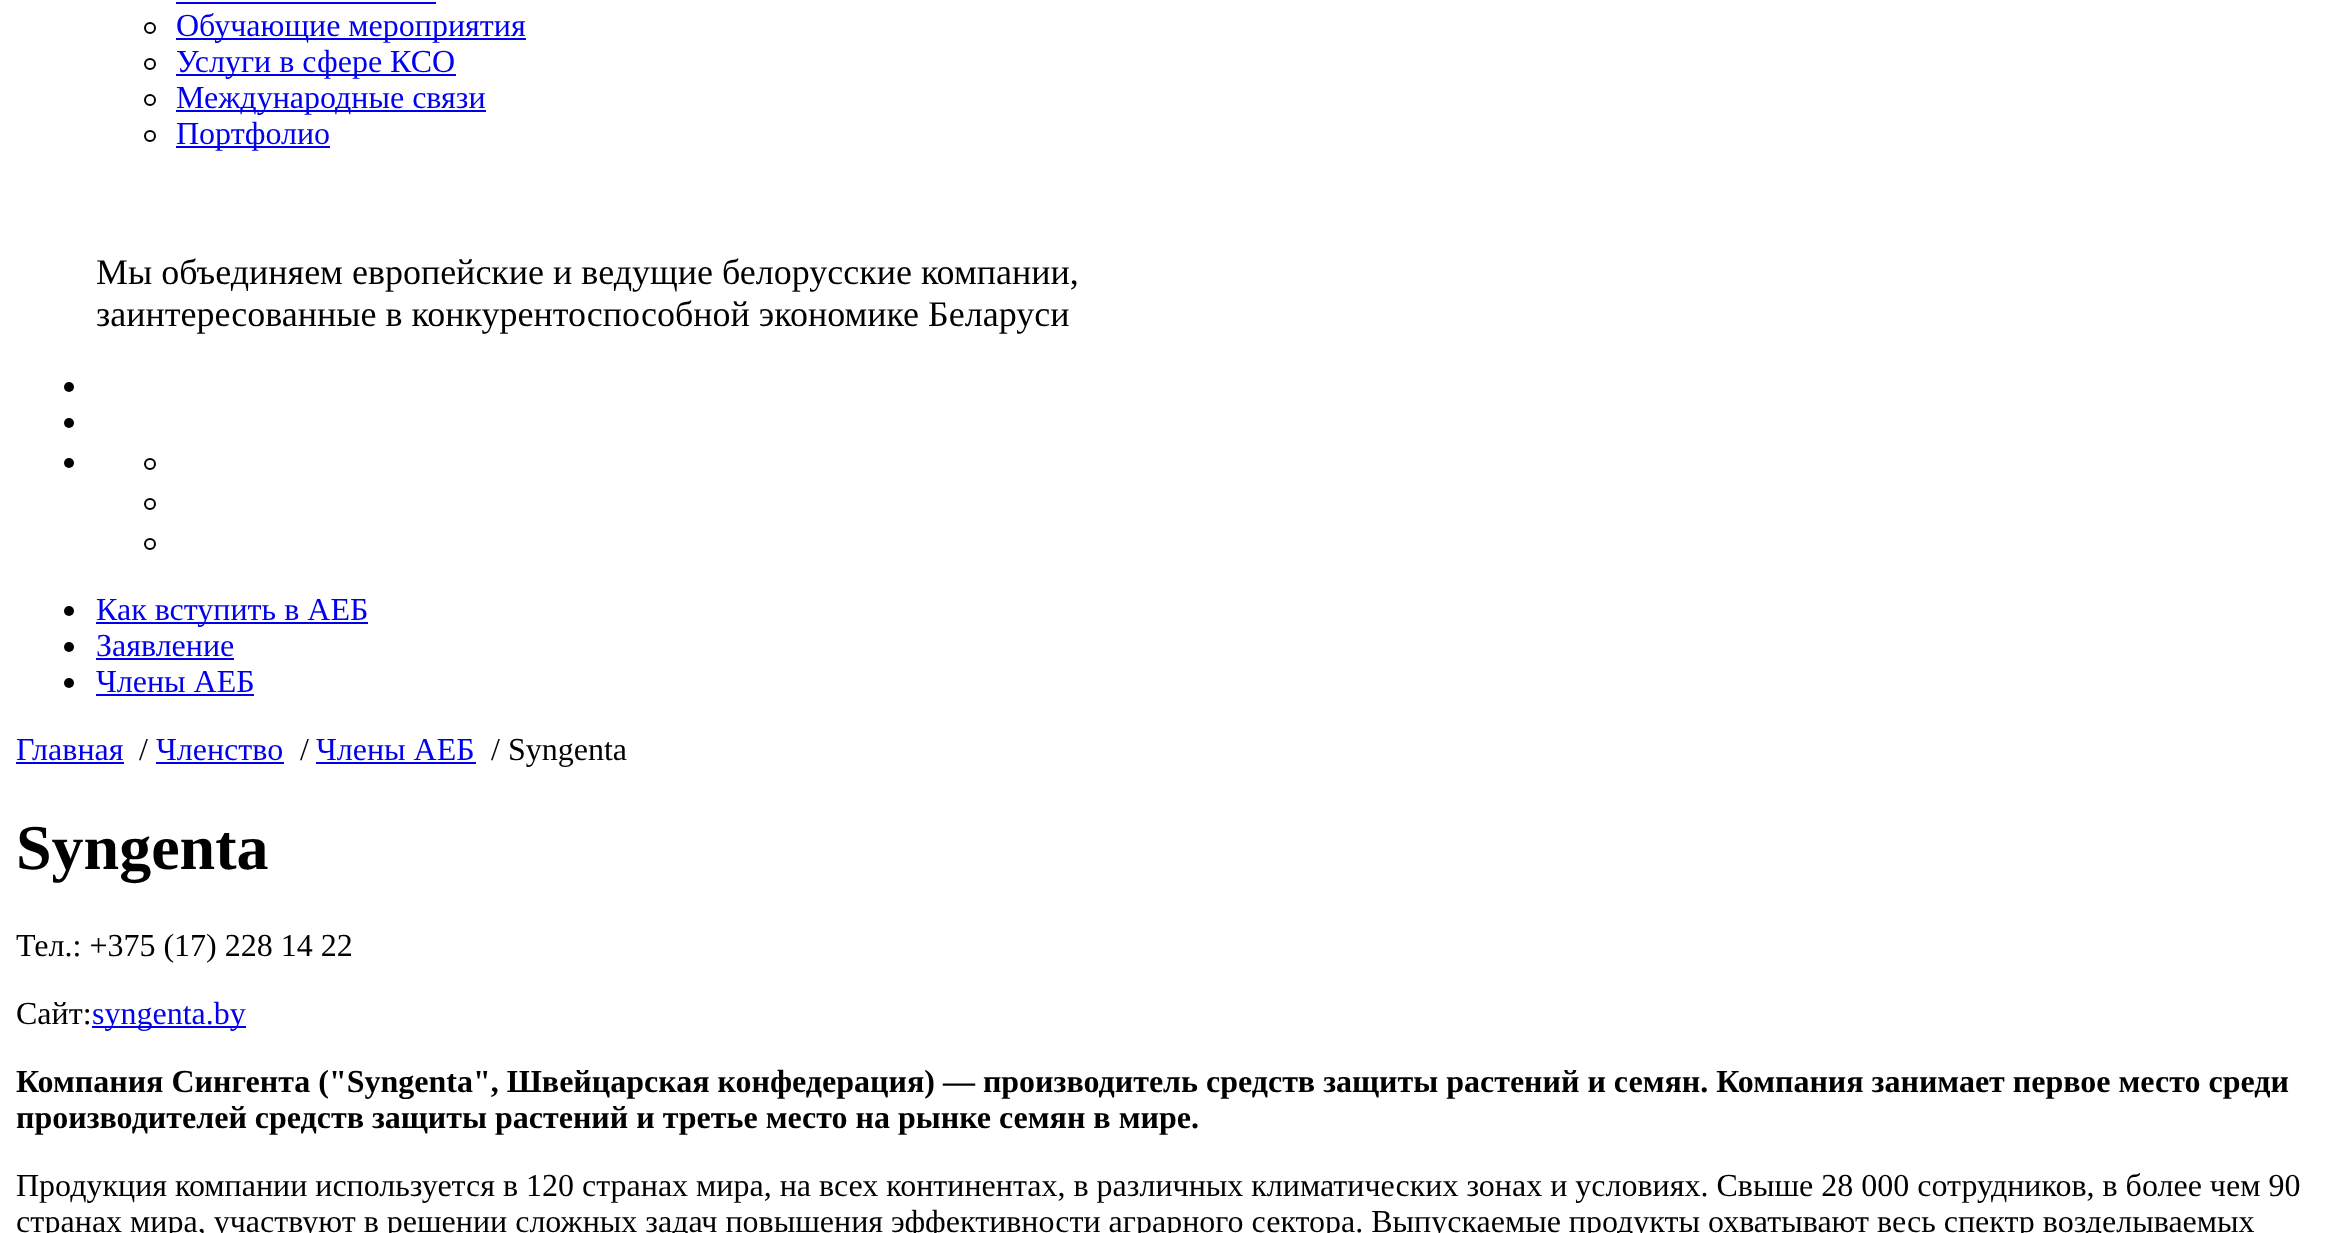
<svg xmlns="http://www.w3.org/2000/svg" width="2341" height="1233">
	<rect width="100%" height="100%" fill="#FFFFFF" />
	<rect x="176" y="2" width="260" height="2" fill="#0000EE" />
	<circle cx="150" cy="28" r="5" fill="none" stroke="#000000" stroke-width="2" />
	<rect x="176" y="38" width="350" height="2" fill="#0000EE" />
	<text x="176" y="36" font-family="Liberation Serif" font-size="32" fill="#0000EE">Обучающие мероприятия</text>
	<circle cx="150" cy="64" r="5" fill="none" stroke="#000000" stroke-width="2" />
	<rect x="176" y="74" width="280" height="2" fill="#0000EE" />
	<text x="176" y="72" font-family="Liberation Serif" font-size="32" fill="#0000EE">Услуги в сфере КСО</text>
	<circle cx="150" cy="100" r="5" fill="none" stroke="#000000" stroke-width="2" />
	<rect x="176" y="110" width="310" height="2" fill="#0000EE" />
	<text x="176" y="108" font-family="Liberation Serif" font-size="32" fill="#0000EE">Международные связи</text>
	<circle cx="150" cy="136" r="5" fill="none" stroke="#000000" stroke-width="2" />
	<rect x="176" y="146" width="154" height="2" fill="#0000EE" />
	<text x="176" y="144" font-family="Liberation Serif" font-size="32" fill="#0000EE">Портфолио</text>
	<g font-family="Liberation Serif" font-size="36" fill="#000000">
		<text x="96" y="284">Мы объединяем европейские и ведущие белорусские компании,</text>
		<text x="96" y="326">заинтересованные в конкурентоспособной экономике Беларуси</text>
	</g>
	<circle cx="69" cy="387" r="5" fill="#000000" />
	<circle cx="69" cy="423" r="5" fill="#000000" />
	<circle cx="69" cy="463" r="5" fill="#000000" />
	<circle cx="150" cy="464" r="5" fill="none" stroke="#000000" stroke-width="2" />
	<circle cx="150" cy="504" r="5" fill="none" stroke="#000000" stroke-width="2" />
	<circle cx="150" cy="544" r="5" fill="none" stroke="#000000" stroke-width="2" />
	<circle cx="69" cy="611" r="5" fill="#000000" />
	<rect x="96" y="622" width="272" height="2" fill="#0000EE" />
	<text x="96" y="620" font-family="Liberation Serif" font-size="32" fill="#0000EE">Как вступить в АЕБ</text>
	<circle cx="69" cy="647" r="5" fill="#000000" />
	<text x="96" y="656" font-family="Liberation Serif" font-size="32" fill="#0000EE">Заявление</text>
	<rect x="96" y="658" width="138" height="2" fill="#0000EE" />
	<circle cx="69" cy="683" r="5" fill="#000000" />
	<text x="96" y="692" font-family="Liberation Serif" font-size="32" fill="#0000EE">Члены АЕБ</text>
	<rect x="96" y="694" width="158" height="2" fill="#0000EE" />
	<text x="16" y="760" font-family="Liberation Serif" font-size="32" fill="#0000EE">Главная</text>
	<rect x="16" y="762" width="108" height="2" fill="#0000EE" />
	<text x="139" y="760" font-family="Liberation Serif" font-size="32" fill="#000000">/</text>
	<text x="156" y="760" font-family="Liberation Serif" font-size="32" fill="#0000EE">Членство</text>
	<rect x="156" y="762" width="128" height="2" fill="#0000EE" />
	<text x="300" y="760" font-family="Liberation Serif" font-size="32" fill="#000000">/</text>
	<text x="316" y="760" font-family="Liberation Serif" font-size="32" fill="#0000EE">Члены АЕБ</text>
	<rect x="316" y="762" width="160" height="2" fill="#0000EE" />
	<text x="491" y="760" font-family="Liberation Serif" font-size="32" fill="#000000">/ Syngenta</text>
	<text x="16" y="869" font-family="Liberation Serif" font-size="64" font-weight="700" fill="#000000">Syngenta</text>
	<g font-family="Liberation Serif" font-size="32" fill="#000000">
		<text x="16" y="956">Тел.: +375 (17) 228 14 22</text>
		<text x="16" y="1024">Cайт:</text>
	</g>
	<rect x="92" y="1026" width="154" height="2" fill="#0000EE" />
	<text x="92" y="1024" font-family="Liberation Serif" font-size="32" fill="#0000EE">syngenta.by</text>
	<g font-family="Liberation Serif" font-size="32" font-weight="700" fill="#000000">
		<text x="16" y="1092">Компания Сингента ("Syngenta", Швейцарская конфедерация) — производитель средств защиты растений и семян. Компания занимает первое место среди</text>
		<text x="16" y="1128">производителей средств защиты растений и третье место на рынке семян в мире.</text>
	</g>
	<g font-family="Liberation Serif" font-size="32" fill="#000000">
		<text x="16" y="1196">Продукция компании используется в 120 странах мира, на всех континентах, в различных климатических зонах и условиях. Свыше 28 000 сотрудников, в более чем 90</text>
		<text x="16" y="1232">странах мира, участвуют в решении сложных задач повышения эффективности аграрного сектора. Выпускаемые продукты охватывают весь спектр возделываемых</text>
	</g>
</svg>
